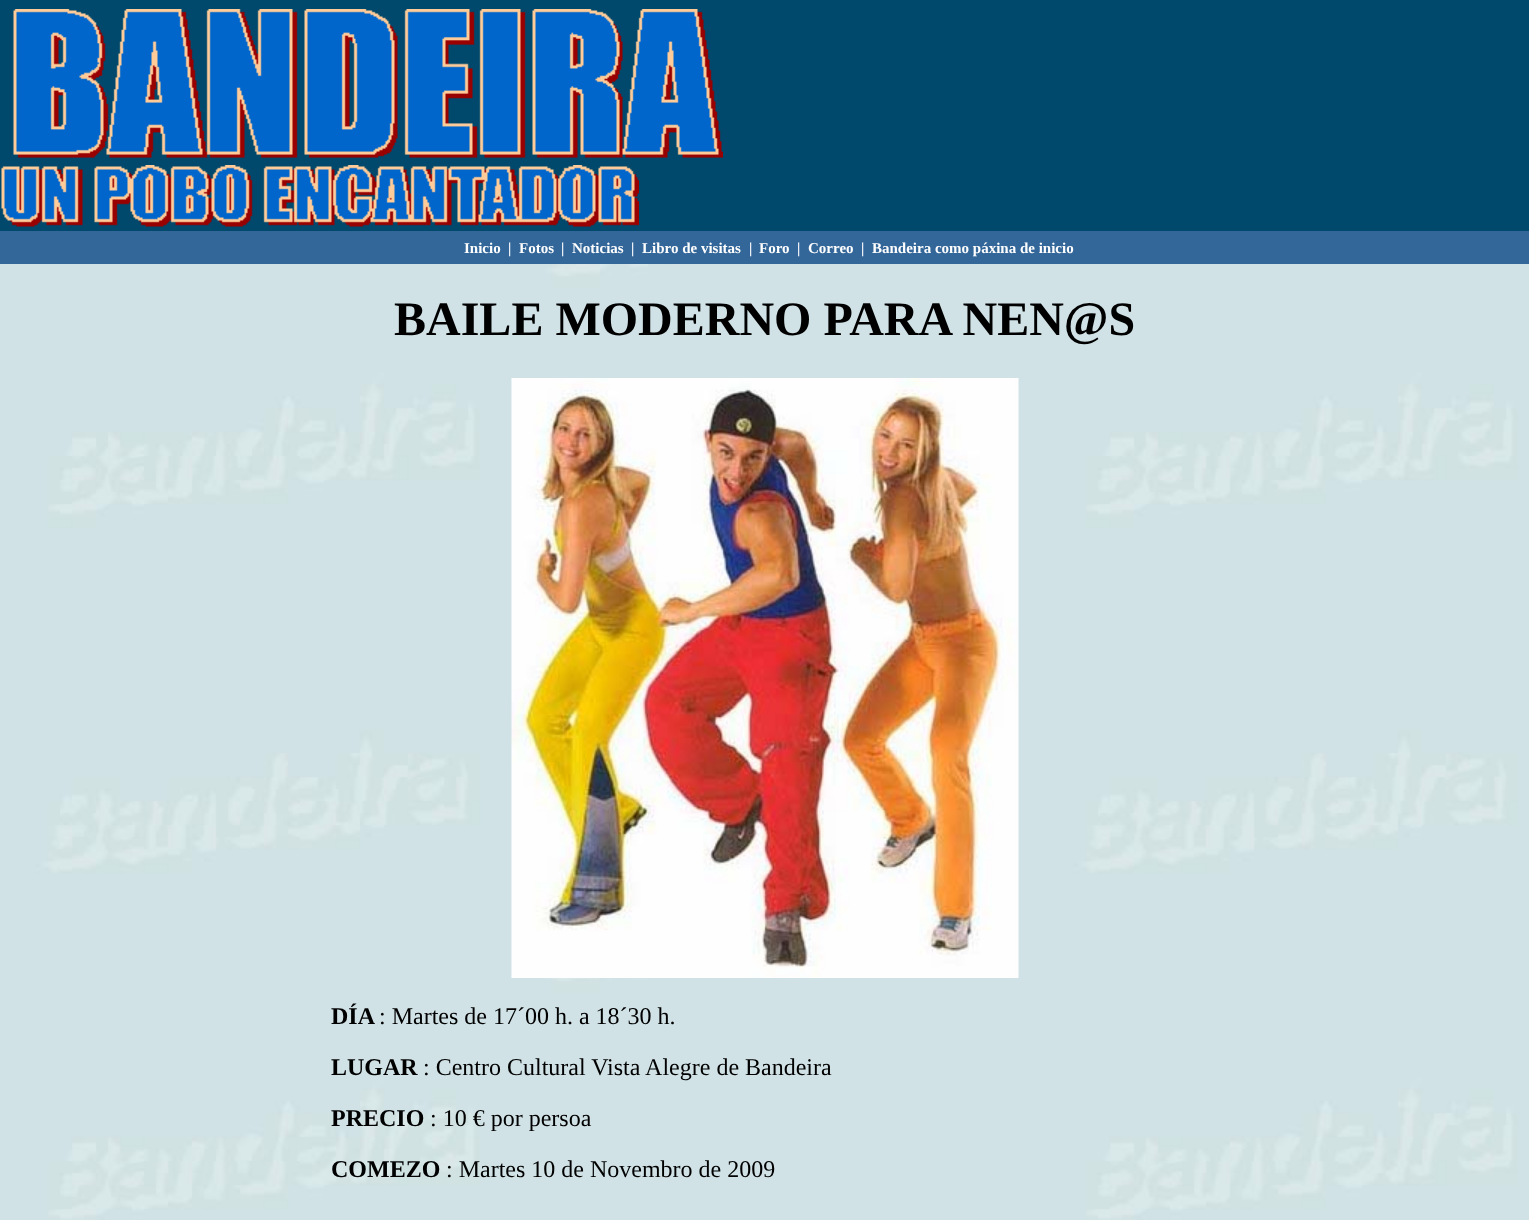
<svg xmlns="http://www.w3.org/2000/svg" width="1529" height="1220">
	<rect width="100%" height="100%" fill="#FFFFFF" />
	<image x="0" y="264" width="1529" height="956" href="assets/img1.png" />
	<rect x="0" y="0" width="1529" height="231" fill="#00496C" />
	<image x="13" y="9" width="710" height="149" href="assets/img2.png" />
	<image x="1" y="165" width="638" height="62" href="assets/img3.png" />
	<rect x="0" y="231" width="1529" height="33" fill="#336699" />
	<g font-family="Liberation Serif" font-size="15" font-weight="700" fill="#FFFFFF">
		<text x="464" y="253">Inicio</text>
		<text x="508" y="253">|</text>
		<text x="519" y="253">Fotos</text>
		<text x="561" y="253">|</text>
		<text x="572" y="253">Noticias</text>
		<text x="631" y="253">|</text>
		<text x="642" y="253">Libro de visitas</text>
		<text x="749" y="253">|</text>
		<text x="759" y="253">Foro</text>
		<text x="797" y="253">|</text>
		<text x="808" y="253">Correo</text>
		<text x="861" y="253">|</text>
		<text x="872" y="253">Bandeira como páxina de inicio</text>
	</g>
	<text x="394" y="335" font-family="Liberation Serif" font-size="48" font-weight="700" fill="#000000">BAILE MODERNO PARA NEN@S</text>
	<image x="511" y="378" width="508" height="600" href="assets/img4.png" />
	<text x="331" y="1024" font-family="Liberation Serif" font-size="24" font-weight="700" fill="#000000">DÍA</text>
	<text x="379" y="1024" font-family="Liberation Serif" font-size="24" fill="#000000">: Martes de 17´00 h. a 18´30 h.</text>
	<text x="331" y="1075" font-family="Liberation Serif" font-size="24" font-weight="700" fill="#000000">LUGAR</text>
	<text x="423" y="1075" font-family="Liberation Serif" font-size="24" fill="#000000">: Centro Cultural Vista Alegre de Bandeira</text>
	<text x="331" y="1126" font-family="Liberation Serif" font-size="24" font-weight="700" fill="#000000">PRECIO</text>
	<text x="430" y="1126" font-family="Liberation Serif" font-size="24" fill="#000000">: 10 € por persoa</text>
	<text x="331" y="1177" font-family="Liberation Serif" font-size="24" font-weight="700" fill="#000000">COMEZO</text>
	<text x="446" y="1177" font-family="Liberation Serif" font-size="24" fill="#000000">: Martes 10 de Novembro de 2009</text>
</svg>
